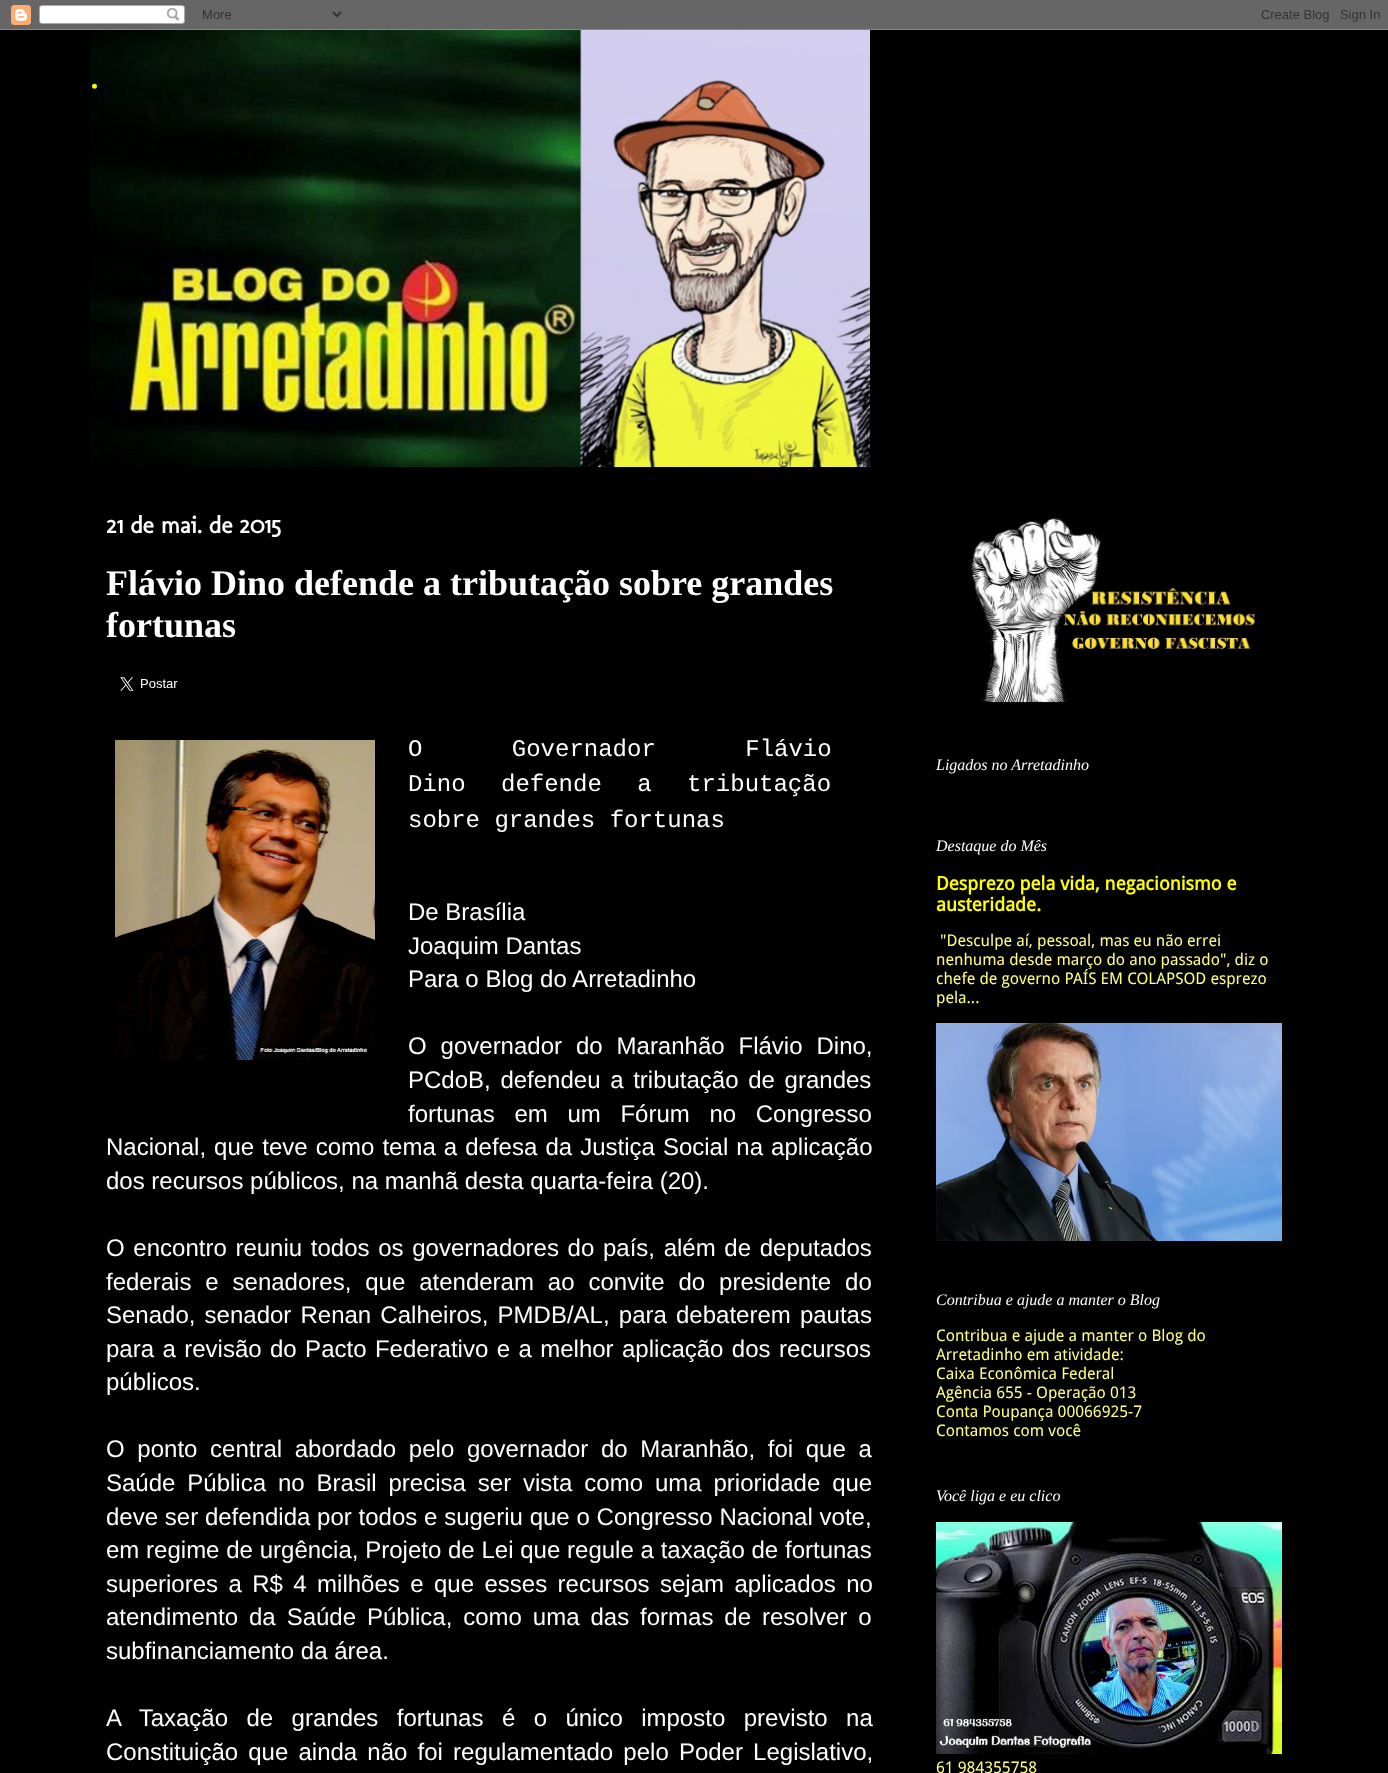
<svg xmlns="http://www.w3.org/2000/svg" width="1388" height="1773">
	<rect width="100%" height="100%" fill="#000000" />
	<image x="0" y="0" width="1388" height="30" href="assets/img1.png" />
	<image x="90" y="30" width="780" height="437" href="assets/img2.png" />
	<text x="90" y="88" font-family="Philosopher" font-size="40" font-weight="700" fill="#FFFF00">.</text>
	<text x="106" y="533" font-family="Molengo" font-size="24" font-weight="700" fill="#FFFFFF">21 de mai. de 2015</text>
	<g font-family="Liberation Serif" font-size="36" font-weight="700" fill="#FFFFFF">
		<text x="106" y="595">Flávio Dino defende a tributação sobre grandes</text>
		<text x="106" y="637">fortunas</text>
	</g>
	<image x="120" y="677" width="58" height="14" href="assets/img3.png" />
	<image x="115" y="740" width="260" height="320" href="assets/img4.png" />
	<g font-family="Liberation Mono" font-size="24" fill="#FFFFFF">
		<text x="408" y="756" word-spacing="75">O Governador Flávio</text>
		<text x="408" y="791" word-spacing="21">Dino defende a tributação</text>
		<text x="408" y="827">sobre grandes fortunas</text>
	</g>
	<g font-family="Liberation Sans" font-size="24" fill="#FFFFFF">
		<text x="408" y="920">De Brasília</text>
		<text x="408" y="954">Joaquim Dantas</text>
		<text x="408" y="987">Para o Blog do Arretadinho</text>
		<text x="408" y="1054" word-spacing="7.25">O governador do Maranhão Flávio Dino,</text>
		<text x="408" y="1088" word-spacing="3">PCdoB, defendeu a tributação de grandes</text>
		<text x="408" y="1122" word-spacing="13">fortunas em um Fórum no Congresso</text>
		<text x="106" y="1155" word-spacing="1.4">Nacional, que teve como tema a defesa da Justiça Social na aplicação</text>
		<text x="106" y="1189">dos recursos públicos, na manhã desta quarta-feira (20).</text>
		<text x="106" y="1256" word-spacing="2">O encontro reuniu todos os governadores do país, além de deputados</text>
		<text x="106" y="1290" word-spacing="7.25">federais e senadores, que atenderam ao convite do presidente do</text>
		<text x="106" y="1323" word-spacing="2.5">Senado, senador Renan Calheiros, PMDB/AL, para debaterem pautas</text>
		<text x="106" y="1357" word-spacing="1.75">para a revisão do Pacto Federativo e a melhor aplicação dos recursos</text>
		<text x="106" y="1390">públicos.</text>
		<text x="106" y="1457" word-spacing="6">O ponto central abordado pelo governador do Maranhão, foi que a</text>
		<text x="106" y="1491" word-spacing="5.25">Saúde Pública no Brasil precisa ser vista como uma prioridade que</text>
		<text x="106" y="1525" word-spacing="0.1">deve ser defendida por todos e sugeriu que o Congresso Nacional vote,</text>
		<text x="106" y="1558" word-spacing="0.1">em regime de urgência, Projeto de Lei que regule a taxação de fortunas</text>
		<text x="106" y="1592" word-spacing="3.75">superiores a R$ 4 milhões e que esses recursos sejam aplicados no</text>
		<text x="106" y="1625" word-spacing="4.25">atendimento da Saúde Pública, como uma das formas de resolver o</text>
		<text x="106" y="1659">subfinanciamento da área.</text>
		<text x="106" y="1726" word-spacing="11.75">A Taxação de grandes fortunas é o único imposto previsto na</text>
		<text x="106" y="1760" word-spacing="3.5">Constituição que ainda não foi regulamentado pelo Poder Legislativo,</text>
	</g>
	<image x="970" y="517" width="288" height="186" href="assets/img5.png" />
	<g font-family="Liberation Serif" font-size="16" font-style="italic" fill="#FFFFFF">
		<text x="936" y="770">Ligados no Arretadinho</text>
		<text x="936" y="851">Destaque do Mês</text>
	</g>
	<g font-family="Droid Sans" font-size="18.75" font-weight="700" fill="#FFFF00">
		<text x="936" y="890">Desprezo pela vida, negacionismo e</text>
		<text x="936" y="911">austeridade.</text>
	</g>
	<g font-family="Droid Sans" font-size="16" fill="#FFFF7F">
		<text x="940" y="946">"Desculpe aí, pessoal, mas eu não errei</text>
		<text x="936" y="965">nenhuma desde março do ano passado", diz o</text>
		<text x="936" y="984">chefe de governo PAÍS EM COLAPSOD esprezo</text>
		<text x="936" y="1003">pela...</text>
	</g>
	<image x="936" y="1023" width="346" height="218" href="assets/img6.png" />
	<text x="936" y="1305" font-family="Liberation Serif" font-size="16" font-style="italic" fill="#FFFFFF">Contribua e ajude a manter o Blog</text>
	<g font-family="Droid Sans" font-size="16" fill="#FFFF7F">
		<text x="936" y="1341">Contribua e ajude a manter o Blog do</text>
		<text x="936" y="1360">Arretadinho em atividade:</text>
		<text x="936" y="1379">Caixa Econômica Federal</text>
		<text x="936" y="1398">Agência 655 - Operação 013</text>
		<text x="936" y="1417">Conta Poupança 00066925-7</text>
		<text x="936" y="1436">Contamos com você</text>
	</g>
	<text x="936" y="1501" font-family="Liberation Serif" font-size="16" font-style="italic" fill="#FFFFFF">Você liga e eu clico</text>
	<image x="936" y="1522" width="346" height="232" href="assets/img7.png" />
	<text x="936" y="1773" font-family="Droid Sans" font-size="16" fill="#FFFF7F">61 984355758</text>
</svg>
